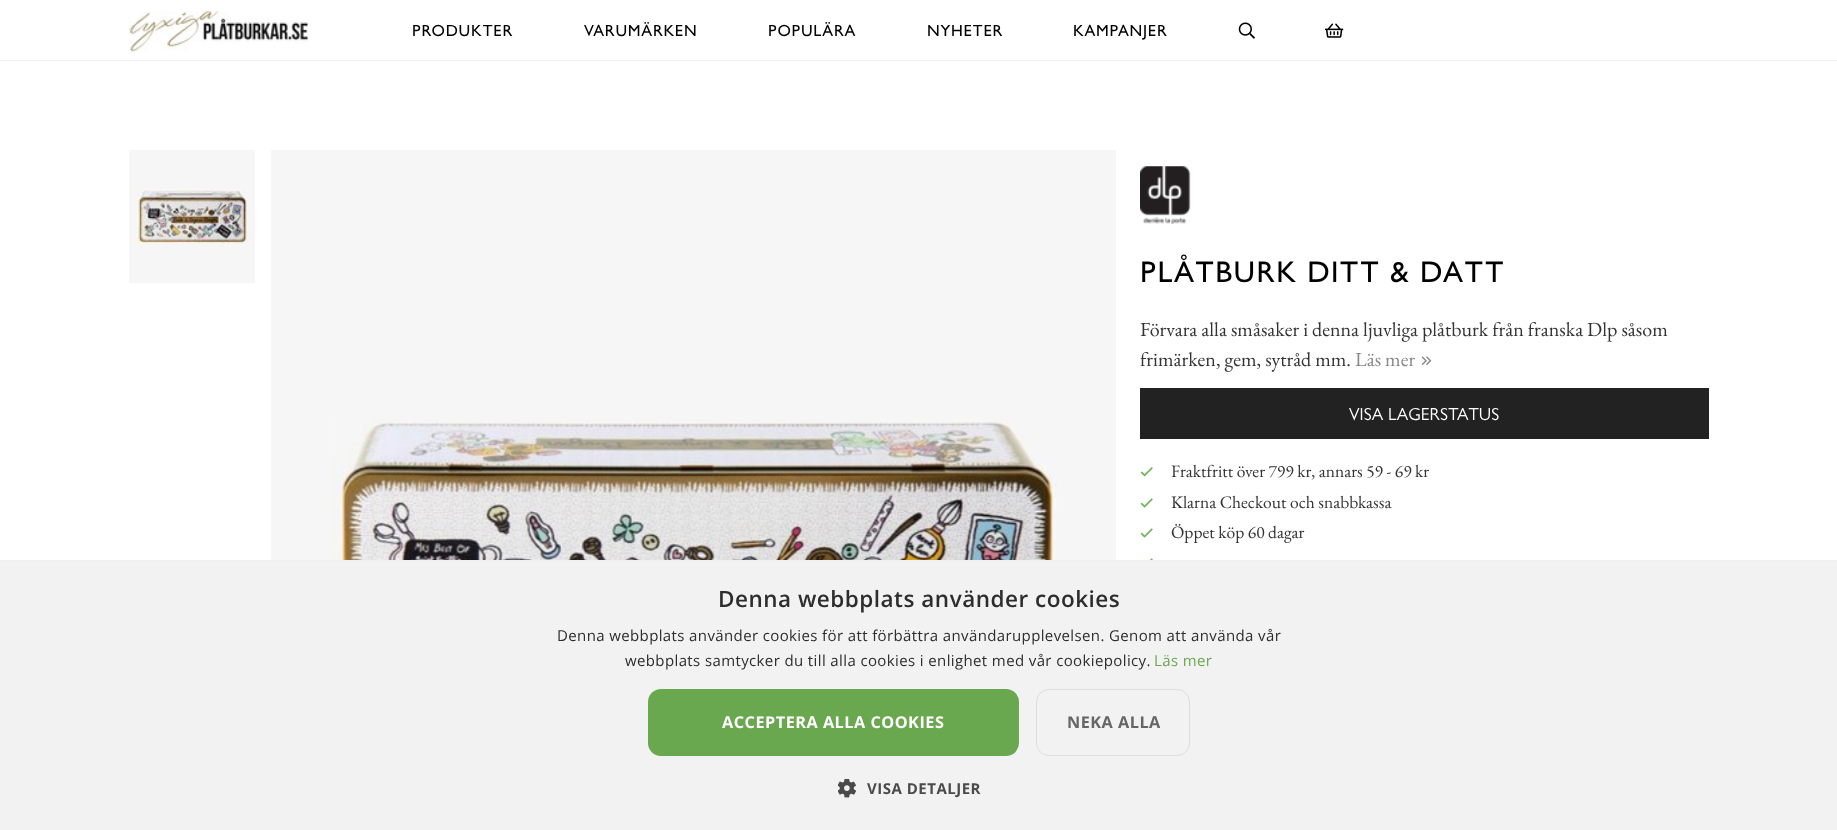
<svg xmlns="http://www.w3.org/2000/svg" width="1837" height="830">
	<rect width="100%" height="100%" fill="#FFFFFF" />
	<rect x="0" y="60" width="1837" height="1" fill="#EEEEEE" />
	<image x="128" y="11" width="180" height="41" href="assets/img1.png" />
	<g font-family="'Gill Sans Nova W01'" font-size="16.25" font-weight="500" letter-spacing="0.75" fill="#000000">
		<text x="412" y="36">PRODUKTER</text>
		<text x="584" y="36">VARUMÄRKEN</text>
		<text x="768" y="36">POPULÄRA</text>
		<text x="927" y="36">NYHETER</text>
		<text x="1073" y="36">KAMPANJER</text>
	</g>
	<image x="1238" y="22" width="17" height="17" href="assets/img2.png" />
	<image x="1325" y="23" width="19" height="15" href="assets/img3.png" />
	<rect x="129" y="150" width="126" height="133" fill="#F6F6F6" />
	<image x="137" y="189" width="110" height="55" href="assets/img4.png" />
	<rect x="271" y="150" width="845" height="410" fill="#F6F6F6" />
	<image x="330" y="419" width="727" height="141" href="assets/img5.png" />
	<image x="1140" y="166" width="51" height="58" href="assets/img6.png" />
	<text x="1140" y="282" font-family="'Gill Sans Nova W01'" font-size="30" font-weight="500" letter-spacing="1.5" fill="#000000">PLÅTBURK DITT &amp; DATT</text>
	<g font-family="EB Garamond" font-size="20" fill="#333333">
		<text x="1140" y="336">Förvara alla småsaker i denna ljuvliga plåtburk från franska Dlp såsom</text>
		<text x="1140" y="366">frimärken, gem, sytråd mm.</text>
	</g>
	<text x="1355" y="366" font-family="EB Garamond" font-size="20" fill="#888888">Läs mer</text>
	<image x="1421" y="356" width="11" height="9" href="assets/img7.png" />
	<rect x="1140" y="388" width="569" height="51" fill="#222222" />
	<text x="1349" y="420" font-family="'Gill Sans Nova W01'" font-size="17.5" fill="#FFFFFF">VISA LAGERSTATUS</text>
	<image x="1140" y="467" width="13" height="10" href="assets/img8.png" />
	<text x="1171" y="477" font-family="EB Garamond" font-size="17.5" fill="#333333">Fraktfritt över 799 kr, annars 59 - 69 kr</text>
	<image x="1140" y="498" width="13" height="10" href="assets/img9.png" />
	<text x="1171" y="508" font-family="EB Garamond" font-size="17.5" fill="#333333">Klarna Checkout och snabbkassa</text>
	<image x="1140" y="528" width="13" height="10" href="assets/img9.png" />
	<text x="1171" y="538" font-family="EB Garamond" font-size="17.5" fill="#333333">Öppet köp 60 dagar</text>
	<image x="1150" y="558" width="3" height="2" href="assets/img10.png" />
	<rect x="0" y="561" width="1837" height="269" fill="#F2F2F2" />
	<rect x="0" y="560" width="1837" height="1" fill="#F0F0F0" />
	<text x="718" y="607" font-family="Open Sans" font-size="22.5" font-weight="600" letter-spacing="0.5" fill="#2D2D2D">Denna webbplats använder cookies</text>
	<g font-family="Open Sans" font-size="15" letter-spacing="0.38" fill="#2D2D2D">
		<text x="557" y="641">Denna webbplats använder cookies för att förbättra användarupplevelsen. Genom att använda vår</text>
		<text x="625" y="666">webbplats samtycker du till alla cookies i enlighet med vår cookiepolicy.</text>
	</g>
	<text x="1154" y="666" font-family="Open Sans" font-size="15" letter-spacing="0.38" fill="#6AA84F">Läs mer</text>
	<rect x="648" y="689" width="371" height="67" rx="13" fill="#6AA84F" />
	<text x="722" y="728" font-family="Open Sans" font-size="16.25" font-weight="700" letter-spacing="0.5" fill="#FFFFFF">ACCEPTERA ALLA COOKIES</text>
	<rect x="1036.5" y="689.5" width="153" height="66" rx="12.5" fill="none" stroke="#DDDDDD" />
	<text x="1067" y="728" font-family="Open Sans" font-size="16.25" font-weight="700" letter-spacing="0.5" fill="#666666">NEKA ALLA</text>
	<image x="838" y="779" width="18" height="19" href="assets/img11.png" />
	<text x="867" y="794" font-family="Open Sans" font-size="15" font-weight="700" letter-spacing="0.5" fill="#4B4B4B">VISA DETALJER</text>
</svg>
